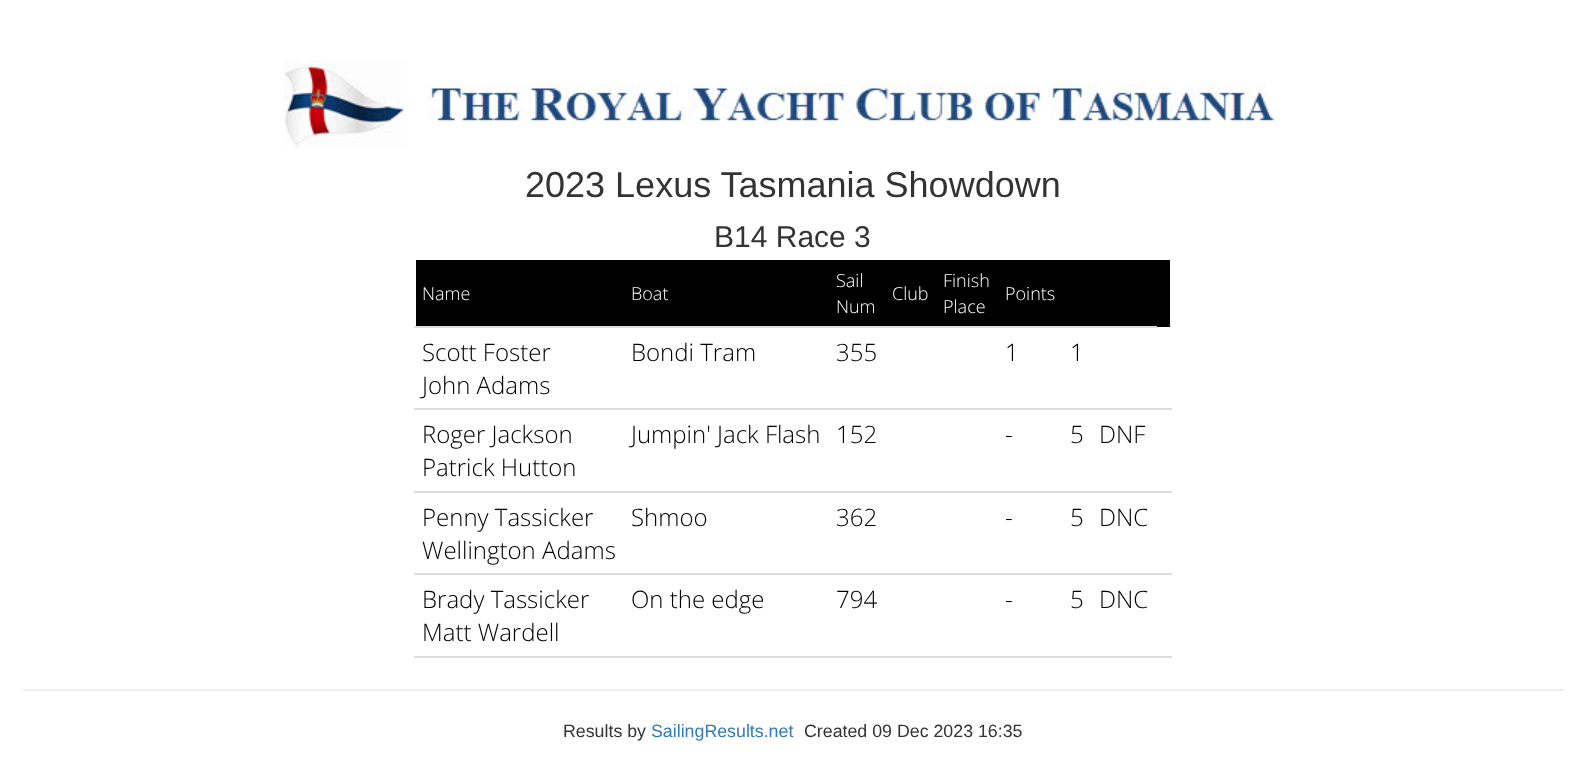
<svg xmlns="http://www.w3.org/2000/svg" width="1585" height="767">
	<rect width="100%" height="100%" fill="#FFFFFF" />
	<image x="283" y="60" width="996" height="88" href="assets/img1.png" />
	<text x="525" y="197" font-family="Liberation Sans" font-size="36" fill="#333333">2023 Lexus Tasmania Showdown</text>
	<text x="714" y="247" font-family="Liberation Sans" font-size="30" fill="#333333">B14 Race 3</text>
	<rect x="416" y="260" width="754" height="67" fill="#000000" />
	<g font-family="Open Sans" font-size="18" font-weight="300" fill="#FFFFFF">
		<text x="422" y="300">Name</text>
		<text x="631" y="300">Boat</text>
		<text x="836" y="287">Sail</text>
		<text x="836" y="313">Num</text>
		<text x="892" y="300">Club</text>
		<text x="943" y="287">Finish</text>
		<text x="943" y="313">Place</text>
		<text x="1005" y="300">Points</text>
	</g>
	<rect x="414" y="326" width="743" height="2" fill="#DDDDDD" />
	<g font-family="Open Sans" font-size="24" font-weight="300" fill="#000000">
		<text x="422" y="361">Scott Foster</text>
		<text x="422" y="394">John Adams</text>
		<text x="631" y="361">Bondi Tram</text>
		<text x="836" y="361">355</text>
		<text x="1005" y="361">1</text>
		<text x="1070" y="361">1</text>
	</g>
	<rect x="414" y="408" width="758" height="2" fill="#DDDDDD" />
	<g font-family="Open Sans" font-size="24" font-weight="300" fill="#000000">
		<text x="422" y="443">Roger Jackson</text>
		<text x="422" y="476">Patrick Hutton</text>
		<text x="631" y="443">Jumpin' Jack Flash</text>
		<text x="836" y="443">152</text>
		<text x="1005" y="443">-</text>
		<text x="1070" y="443">5</text>
		<text x="1099" y="443">DNF</text>
	</g>
	<rect x="414" y="491" width="758" height="2" fill="#DDDDDD" />
	<g font-family="Open Sans" font-size="24" font-weight="300" fill="#000000">
		<text x="422" y="526">Penny Tassicker</text>
		<text x="422" y="559">Wellington Adams</text>
		<text x="631" y="526">Shmoo</text>
		<text x="836" y="526">362</text>
		<text x="1005" y="526">-</text>
		<text x="1070" y="526">5</text>
		<text x="1099" y="526">DNC</text>
	</g>
	<rect x="414" y="573" width="758" height="2" fill="#DDDDDD" />
	<g font-family="Open Sans" font-size="24" font-weight="300" fill="#000000">
		<text x="422" y="608">Brady Tassicker</text>
		<text x="422" y="641">Matt Wardell</text>
		<text x="631" y="608">On the edge</text>
		<text x="836" y="608">794</text>
		<text x="1005" y="608">-</text>
		<text x="1070" y="608">5</text>
		<text x="1099" y="608">DNC</text>
	</g>
	<rect x="414" y="656" width="758" height="2" fill="#DDDDDD" />
	<rect x="23" y="689" width="1540" height="2" fill="#EEEEEE" />
	<text x="563" y="737" font-family="Liberation Sans" font-size="17.8" fill="#333333">Results by</text>
	<text x="651" y="737" font-family="Liberation Sans" font-size="17.8" fill="#337AB7">SailingResults.net</text>
	<text x="804" y="737" font-family="Liberation Sans" font-size="17.8" fill="#333333">Created 09 Dec 2023 16:35</text>
</svg>
